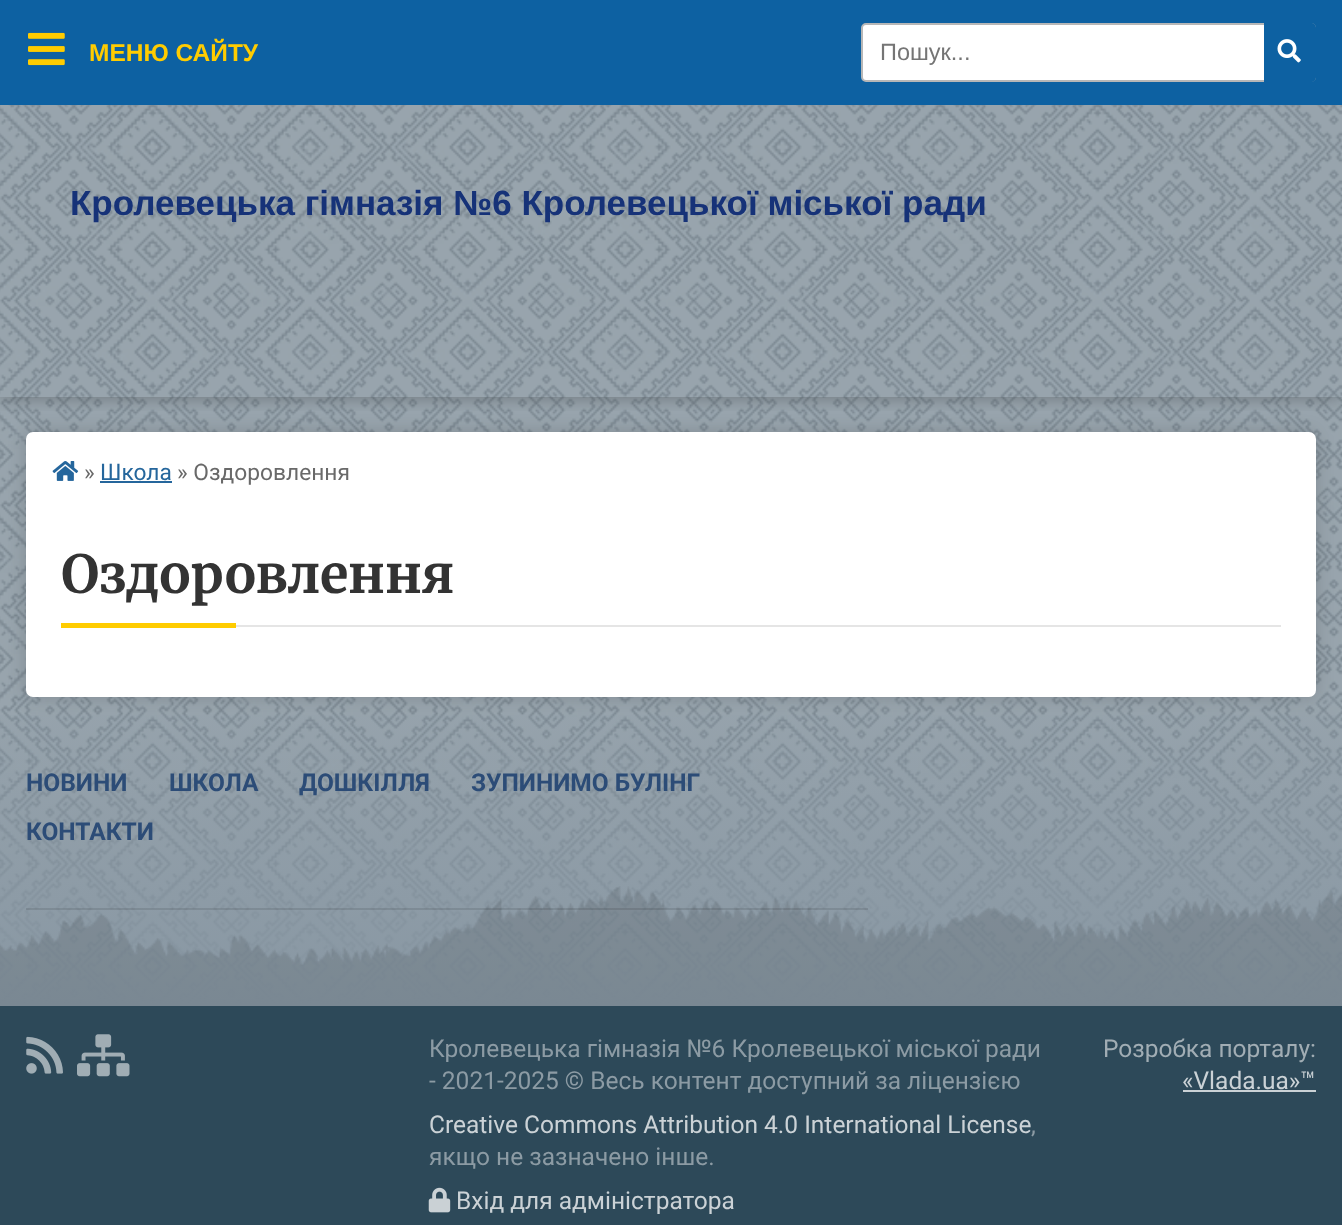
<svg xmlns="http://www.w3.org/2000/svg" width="1342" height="1225">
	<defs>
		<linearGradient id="g1" gradientUnits="userSpaceOnUse" x1="671" y1="670" x2="671" y2="1006"><stop offset="0" stop-color="#8897A3" stop-opacity="0" /><stop offset="1" stop-color="#8897A3" /></linearGradient>
		<clipPath id="clip1"><rect x="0" y="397" width="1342" height="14" /></clipPath>
	</defs>
	<rect width="100%" height="100%" fill="#8897A3" />
	<image x="0" y="105" width="1342" height="899" href="assets/img1.png" />
	<rect x="0" y="715" width="1342" height="289" fill="url(#g1)" />
	<rect x="26" y="432" width="1290" height="265" rx="7" fill="#000000" fill-opacity="0.15" filter="blur(9px)" />
	<rect x="26" y="432" width="1290" height="265" rx="7" fill="#FFFFFF" />
	<g clip-path="url(#clip1)">
		<rect x="0" y="100" width="1342" height="297" fill="#000000" fill-opacity="0.3" filter="blur(9px)" />
	</g>
	<rect x="0" y="0" width="1342" height="105" fill="#0D61A2" />
	<image x="28" y="32" width="37" height="34" href="assets/img2.png" />
	<text x="89" y="61" font-family="Liberation Sans" font-size="24.5" font-weight="700" fill="#FFCC00">МЕНЮ САЙТУ</text>
	<image x="52" y="461" width="27" height="20" href="assets/img3.png" />
	<text x="84" y="480" font-family="Roboto" font-size="22.75" fill="#696969">»</text>
	<text x="100" y="480" font-family="Roboto" font-size="22.75" fill="#25669C">Школа</text>
	<rect x="100" y="481" width="72" height="2" fill="#25669C" />
	<text x="177" y="480" font-family="Roboto" font-size="22.75" fill="#696969">» Оздоровлення</text>
	<rect x="236" y="625" width="1045" height="2" fill="#E5E5E5" />
	<text x="61" y="593" font-family="Merriweather" font-size="52.5" font-weight="300" fill="#333333">Оздоровлення</text>
	<rect x="61" y="623" width="175" height="5" fill="#FFCC00" />
	<rect x="862" y="24" width="453" height="57" rx="4" fill="#FFFFFF" stroke="#B7B7B7" stroke-width="2" />
	<text x="880" y="60" font-family="Liberation Sans" font-size="23.5" fill="#757575">Пошук...</text>
	<path d="M1264 23H1311C1314 23 1316 25 1316 28V77C1316 80 1314 82 1311 82H1264Z" fill="#0D61A2" />
	<image x="1277" y="39" width="24" height="24" href="assets/img4.png" />
	<text x="70" y="215" font-family="Liberation Sans" font-size="35" font-weight="700" fill="#163278">Кролевецька гімназія №6 Кролевецької міської ради</text>
	<image x="0" y="886" width="1342" height="120" href="assets/img5.png" />
	<rect x="26" y="908" width="842" height="2" fill="#000000" fill-opacity="0.1" />
	<g font-family="Roboto" font-size="24.5" font-weight="700" fill="#2C4C77">
		<text x="26" y="791">НОВИНИ</text>
		<text x="169" y="791">ШКОЛА</text>
		<text x="299" y="791">ДОШКІЛЛЯ</text>
		<text x="471" y="791">ЗУПИНИМО БУЛІНГ</text>
		<text x="26" y="840">КОНТАКТИ</text>
	</g>
	<rect x="0" y="1006" width="1342" height="219" fill="#2D4959" />
	<image x="26" y="1036" width="37" height="38" href="assets/img6.png" />
	<image x="77" y="1034" width="53" height="43" href="assets/img7.png" />
	<g font-family="Roboto" font-size="24.5" fill="#8C9BA4">
		<text x="429" y="1057">Кролевецька гімназія №6 Кролевецької міської ради</text>
		<text x="429" y="1089">- 2021-2025 © Весь контент доступний за ліцензією</text>
	</g>
	<text x="429" y="1133" font-family="Roboto" font-size="24.5" fill="#CBD2D6">Creative Commons Attribution 4.0 International License</text>
	<g font-family="Roboto" font-size="24.5" fill="#8C9BA4">
		<text x="1031" y="1133">,</text>
		<text x="429" y="1165">якщо не зазначено інше.</text>
	</g>
	<image x="428" y="1187" width="23" height="26" href="assets/img8.png" />
	<text x="456" y="1209" font-family="Roboto" font-size="24.5" fill="#CBD2D6">Вхід для адміністратора</text>
	<text x="1103" y="1057" font-family="Roboto" font-size="24.5" fill="#A1ADB4">Розробка порталу:</text>
	<text x="1182" y="1089" font-family="Roboto" font-size="24.5" fill="#CBD2D6">«Vlada.ua»™</text>
	<rect x="1183" y="1090" width="133" height="2" fill="#CBD2D6" />
</svg>
